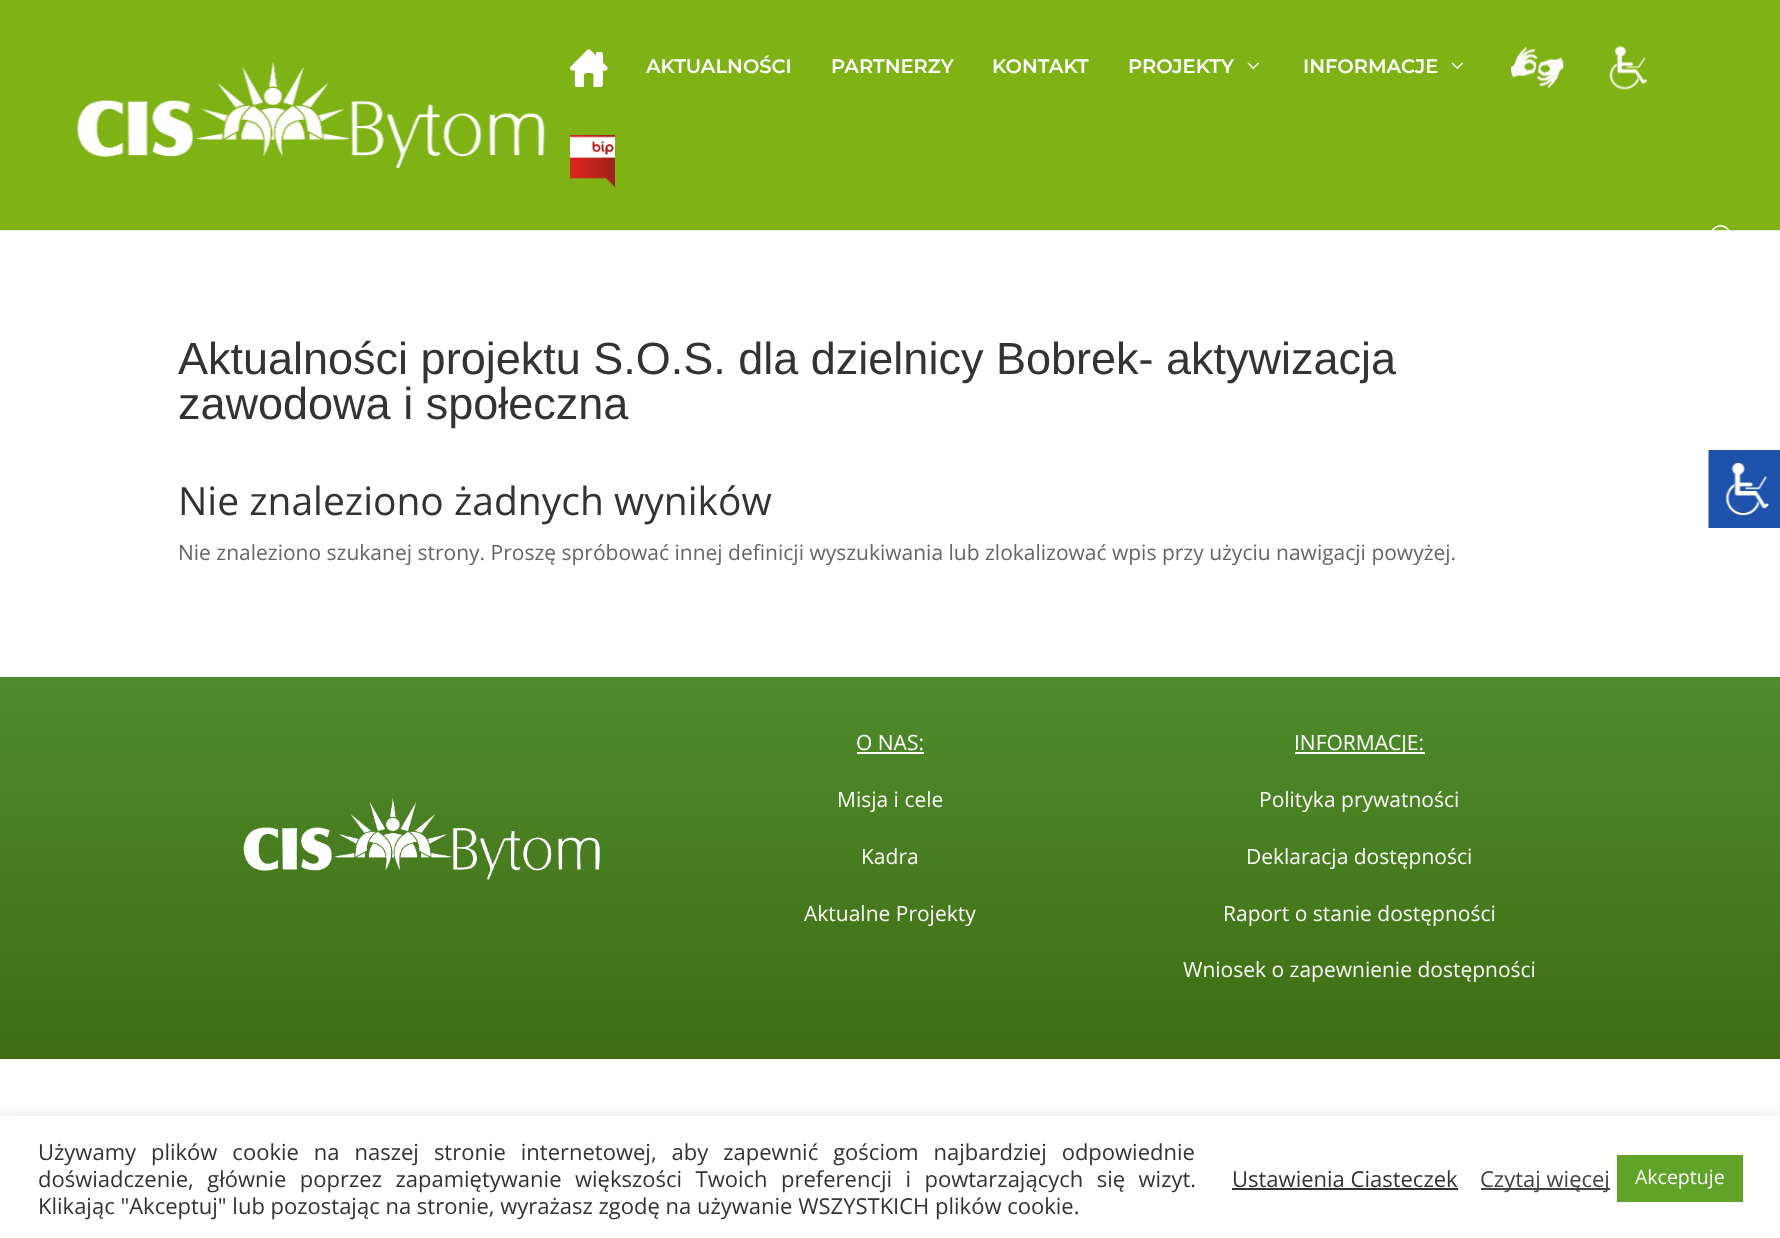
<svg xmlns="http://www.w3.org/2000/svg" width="1780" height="1238">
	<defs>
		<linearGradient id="g1" gradientUnits="userSpaceOnUse" x1="890" y1="676" x2="890" y2="1059"><stop offset="0" stop-color="#4E8C2B" /><stop offset="1" stop-color="#406D12" /></linearGradient>
		<clipPath id="clip1"><rect x="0" y="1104" width="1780" height="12" /></clipPath>
	</defs>
	<rect width="100%" height="100%" fill="#FFFFFF" />
	<path d="M0 230V231H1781V2H1780V230Z" fill="#E6E6E6" />
	<rect x="0" y="0" width="1780" height="230" fill="#7FB215" />
	<image x="76" y="61" width="469" height="108" href="assets/img1.png" />
	<image x="570" y="49" width="38" height="38" href="assets/img2.png" />
	<g font-family="Montserrat" font-size="19.5" font-weight="600" fill="#FFFFFF">
		<text x="646" y="73">AKTUALNOŚCI</text>
		<text x="831" y="73">PARTNERZY</text>
		<text x="992" y="73">KONTAKT</text>
		<text x="1128" y="73">PROJEKTY</text>
	</g>
	<image x="1247" y="62" width="12" height="7" href="assets/img3.png" />
	<text x="1303" y="73" font-family="Montserrat" font-size="19.5" font-weight="600" fill="#FFFFFF">INFORMACJE</text>
	<image x="1451" y="62" width="12" height="7" href="assets/img3.png" />
	<image x="1511" y="46" width="53" height="43" href="assets/img4.png" />
	<image x="1609" y="45" width="39" height="45" href="assets/img5.png" />
	<image x="570" y="135" width="45" height="53" href="assets/img6.png" />
	<image x="1711" y="225" width="19" height="6" href="assets/img7.png" />
	<g font-family="Liberation Sans" font-size="45" fill="#333333">
		<text x="178" y="374">Aktualności projektu S.O.S. dla dzielnicy Bobrek- aktywizacja</text>
		<text x="178" y="419">zawodowa i społeczna</text>
	</g>
	<text x="178" y="515" font-family="Open Sans" font-size="39" fill="#333333">Nie znaleziono żadnych wyników</text>
	<text x="178" y="560" font-family="Open Sans" font-size="21" fill="#666666">Nie znaleziono szukanej strony. Proszę spróbować innej definicji wyszukiwania lub zlokalizować wpis przy użyciu nawigacji powyżej.</text>
	<rect x="0" y="677" width="1780" height="382" fill="url(#g1)" />
	<image x="243" y="798" width="357" height="82" href="assets/img8.png" />
	<text x="856" y="750" font-family="Open Sans" font-size="21" fill="#FFFFFF">O NAS:</text>
	<rect x="857" y="752" width="67" height="2" fill="#FFFFFF" />
	<g font-family="Open Sans" font-size="21" fill="#F9F9F9">
		<text x="837" y="807">Misja i cele</text>
		<text x="861" y="864">Kadra</text>
		<text x="804" y="921">Aktualne Projekty</text>
	</g>
	<rect x="1295" y="752" width="130" height="2" fill="#FFFFFF" />
	<text x="1294" y="750" font-family="Open Sans" font-size="21" fill="#FFFFFF">INFORMACJE:</text>
	<g font-family="Open Sans" font-size="21" fill="#F9F9F9">
		<text x="1259" y="807">Polityka prywatności</text>
		<text x="1246" y="864">Deklaracja dostępności</text>
		<text x="1223" y="921">Raport o stanie dostępności</text>
		<text x="1183" y="977">Wniosek o zapewnienie dostępności</text>
	</g>
	<image x="1708" y="450" width="72" height="78" href="assets/img9.png" />
	<g clip-path="url(#clip1)">
		<rect x="0" y="1115" width="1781" height="123" fill="#ACABAB" fill-opacity="0.3" filter="blur(7.5px)" />
	</g>
	<g font-family="Open Sans" font-size="22" fill="#333333">
		<text x="38" y="1160" word-spacing="9.25">Używamy plików cookie na naszej stronie internetowej, aby zapewnić gościom najbardziej odpowiednie</text>
		<text x="38" y="1187" word-spacing="7.75">doświadczenie, głównie poprzez zapamiętywanie większości Twoich preferencji i powtarzających się wizyt.</text>
		<text x="38" y="1214">Klikając "Akceptuj" lub pozostając na stronie, wyrażasz zgodę na używanie WSZYSTKICH plików cookie.</text>
		<text x="1232" y="1187">Ustawienia Ciasteczek</text>
	</g>
	<rect x="1232" y="1188" width="226" height="2" fill="#333333" />
	<rect x="1481" y="1188" width="129" height="2" fill="#444444" />
	<text x="1480" y="1187" font-family="Open Sans" font-size="22" fill="#444444">Czytaj więcej</text>
	<rect x="1617" y="1155" width="126" height="47" fill="#61A229" />
	<text x="1635" y="1184" font-family="Open Sans" font-size="19.5" fill="#FFFFFF">Akceptuje</text>
</svg>
